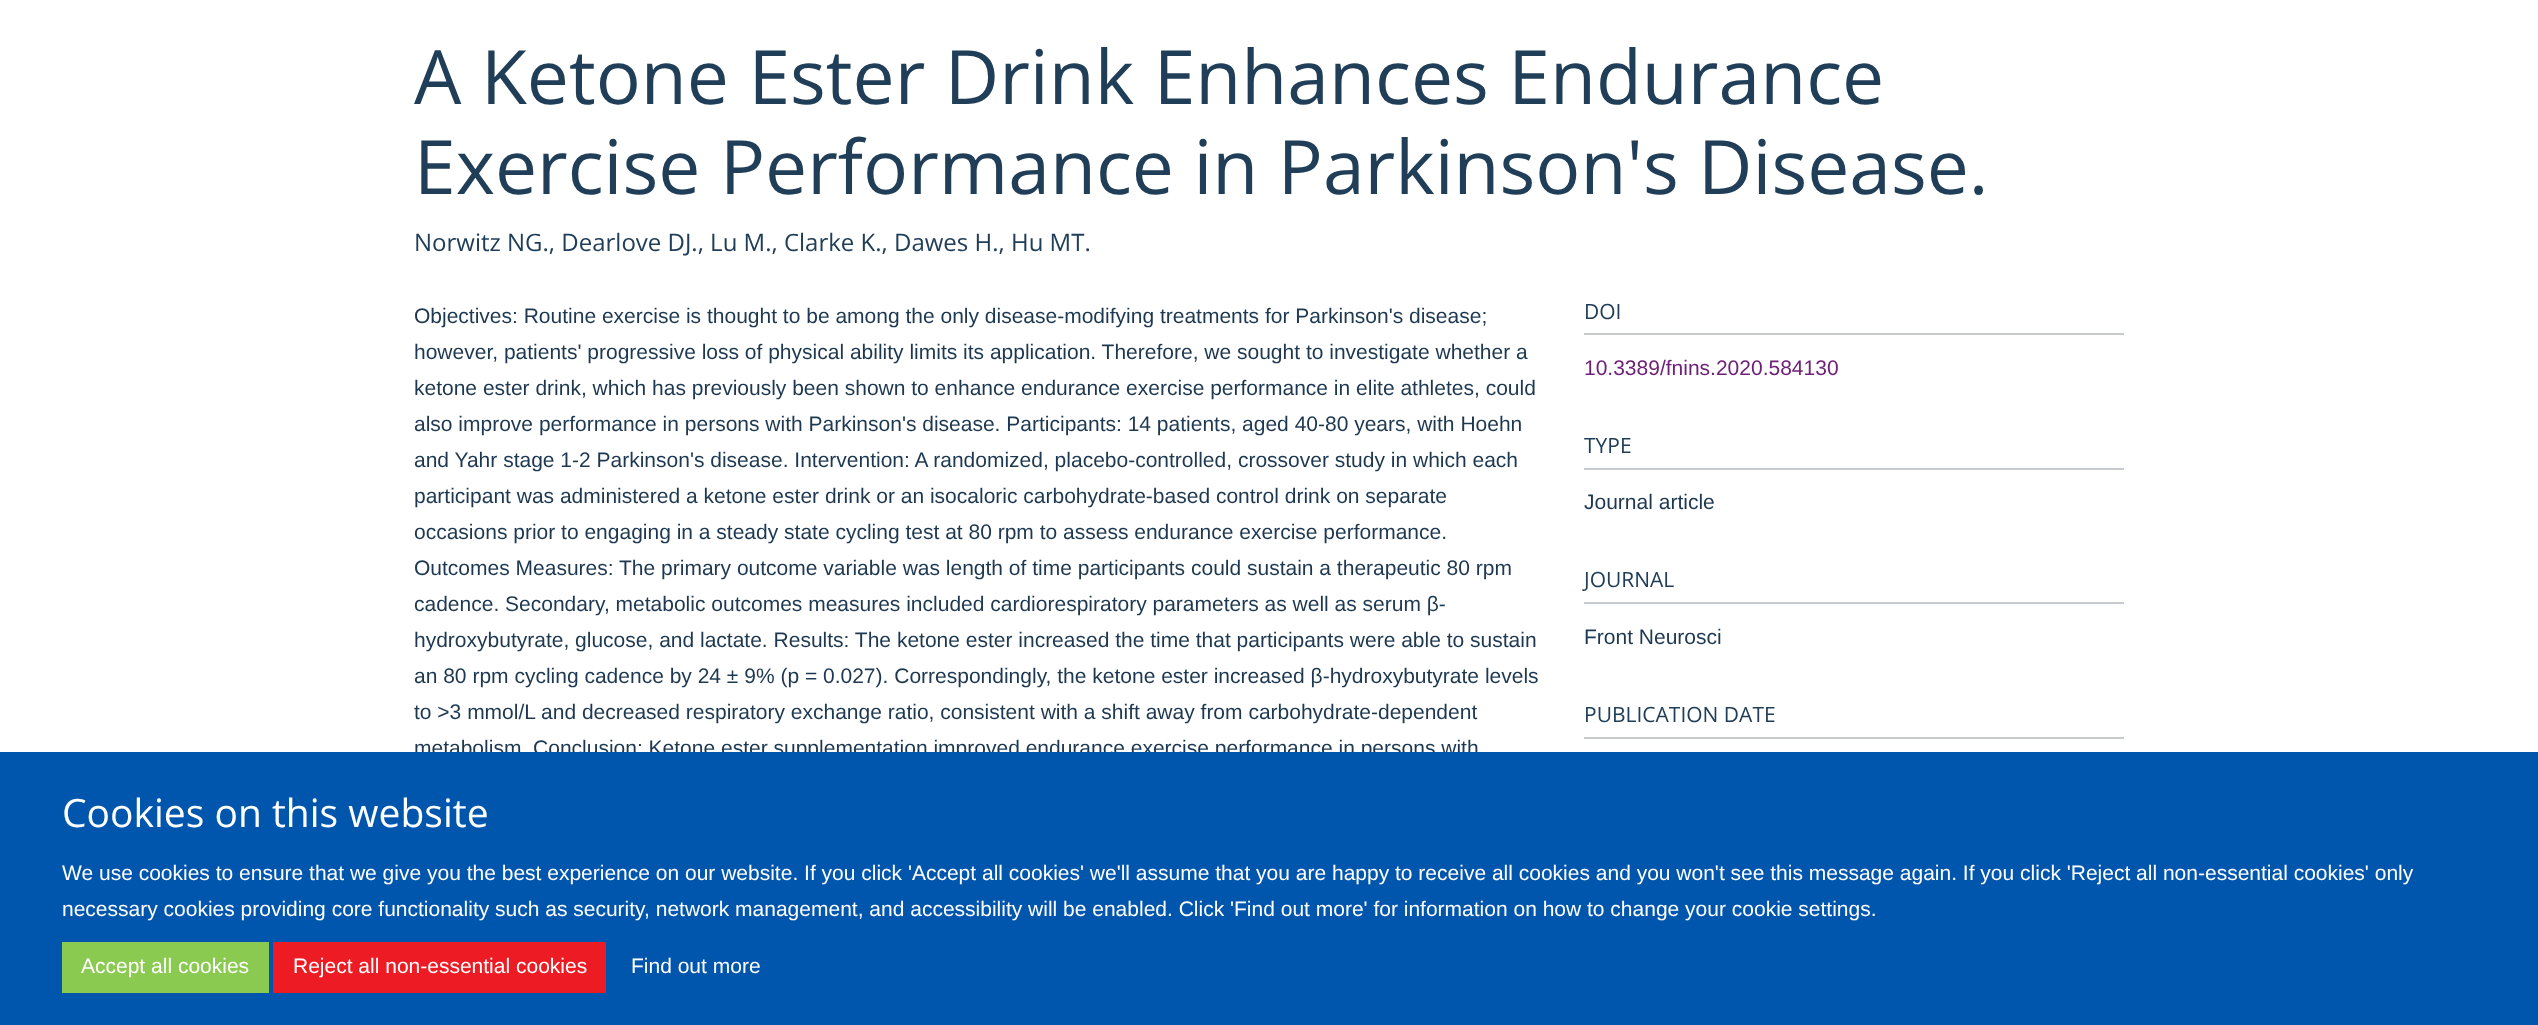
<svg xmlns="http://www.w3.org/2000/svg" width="2538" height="1025">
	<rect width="100%" height="100%" fill="#FFFFFF" />
	<g font-family="Open Sans" font-size="75" fill="#203E58">
		<text x="414" y="104">A Ketone Ester Drink Enhances Endurance</text>
		<text x="414" y="194">Exercise Performance in Parkinson's Disease.</text>
	</g>
	<text x="414" y="251" font-family="Open Sans" font-size="24" fill="#203E58">Norwitz NG., Dearlove DJ., Lu M., Clarke K., Dawes H., Hu MT.</text>
	<g font-family="Liberation Sans" font-size="21" fill="#1D3850">
		<text x="414" y="323">Objectives: Routine exercise is thought to be among the only disease-modifying treatments for Parkinson's disease;</text>
		<text x="414" y="359">however, patients' progressive loss of physical ability limits its application. Therefore, we sought to investigate whether a</text>
		<text x="414" y="395">ketone ester drink, which has previously been shown to enhance endurance exercise performance in elite athletes, could</text>
		<text x="414" y="431">also improve performance in persons with Parkinson's disease. Participants: 14 patients, aged 40-80 years, with Hoehn</text>
		<text x="414" y="467">and Yahr stage 1-2 Parkinson's disease. Intervention: A randomized, placebo-controlled, crossover study in which each</text>
		<text x="414" y="503">participant was administered a ketone ester drink or an isocaloric carbohydrate-based control drink on separate</text>
		<text x="414" y="539">occasions prior to engaging in a steady state cycling test at 80 rpm to assess endurance exercise performance.</text>
		<text x="414" y="575">Outcomes Measures: The primary outcome variable was length of time participants could sustain a therapeutic 80 rpm</text>
		<text x="414" y="611">cadence. Secondary, metabolic outcomes measures included cardiorespiratory parameters as well as serum β-</text>
		<text x="414" y="647">hydroxybutyrate, glucose, and lactate. Results: The ketone ester increased the time that participants were able to sustain</text>
		<text x="414" y="683">an 80 rpm cycling cadence by 24 ± 9% (p = 0.027). Correspondingly, the ketone ester increased β-hydroxybutyrate levels</text>
		<text x="414" y="719">to &gt;3 mmol/L and decreased respiratory exchange ratio, consistent with a shift away from carbohydrate-dependent</text>
		<text x="414" y="755">metabolism. Conclusion: Ketone ester supplementation improved endurance exercise performance in persons with</text>
	</g>
	<rect x="1584" y="333" width="540" height="2" fill="#C6CACF" />
	<text x="1584" y="319" font-family="Open Sans" font-size="21" fill="#203E58">DOI</text>
	<text x="1584" y="375" font-family="Liberation Sans" font-size="21" fill="#6F2078">10.3389/fnins.2020.584130</text>
	<rect x="1584" y="468" width="540" height="2" fill="#C6CACF" />
	<text x="1584" y="453" font-family="Open Sans" font-size="21" fill="#203E58">TYPE</text>
	<text x="1584" y="509" font-family="Liberation Sans" font-size="21" fill="#1D3850">Journal article</text>
	<rect x="1584" y="602" width="540" height="2" fill="#C6CACF" />
	<text x="1584" y="587" font-family="Open Sans" font-size="21" fill="#203E58">JOURNAL</text>
	<text x="1584" y="644" font-family="Liberation Sans" font-size="21" fill="#1D3850">Front Neurosci</text>
	<rect x="1584" y="737" width="540" height="2" fill="#C6CACF" />
	<text x="1584" y="722" font-family="Open Sans" font-size="21" fill="#203E58">PUBLICATION DATE</text>
	<rect x="0" y="752" width="2538" height="273" fill="#0055AD" />
	<text x="62" y="827" font-family="Open Sans" font-size="39" fill="#FFFFFF">Cookies on this website</text>
	<g font-family="Liberation Sans" font-size="21" fill="#FFFFFF">
		<text x="62" y="880">We use cookies to ensure that we give you the best experience on our website. If you click 'Accept all cookies' we'll assume that you are happy to receive all cookies and you won't see this message again. If you click 'Reject all non-essential cookies' only</text>
		<text x="62" y="916">necessary cookies providing core functionality such as security, network management, and accessibility will be enabled. Click 'Find out more' for information on how to change your cookie settings.</text>
	</g>
	<rect x="62" y="942" width="207" height="51" fill="#8BCA50" />
	<text x="81" y="973" font-family="Liberation Sans" font-size="21" fill="#FFFFFF">Accept all cookies</text>
	<rect x="273" y="942" width="333" height="51" fill="#ED1C24" />
	<g font-family="Liberation Sans" font-size="21" fill="#FFFFFF">
		<text x="293" y="973">Reject all non-essential cookies</text>
		<text x="631" y="973">Find out more</text>
	</g>
</svg>
